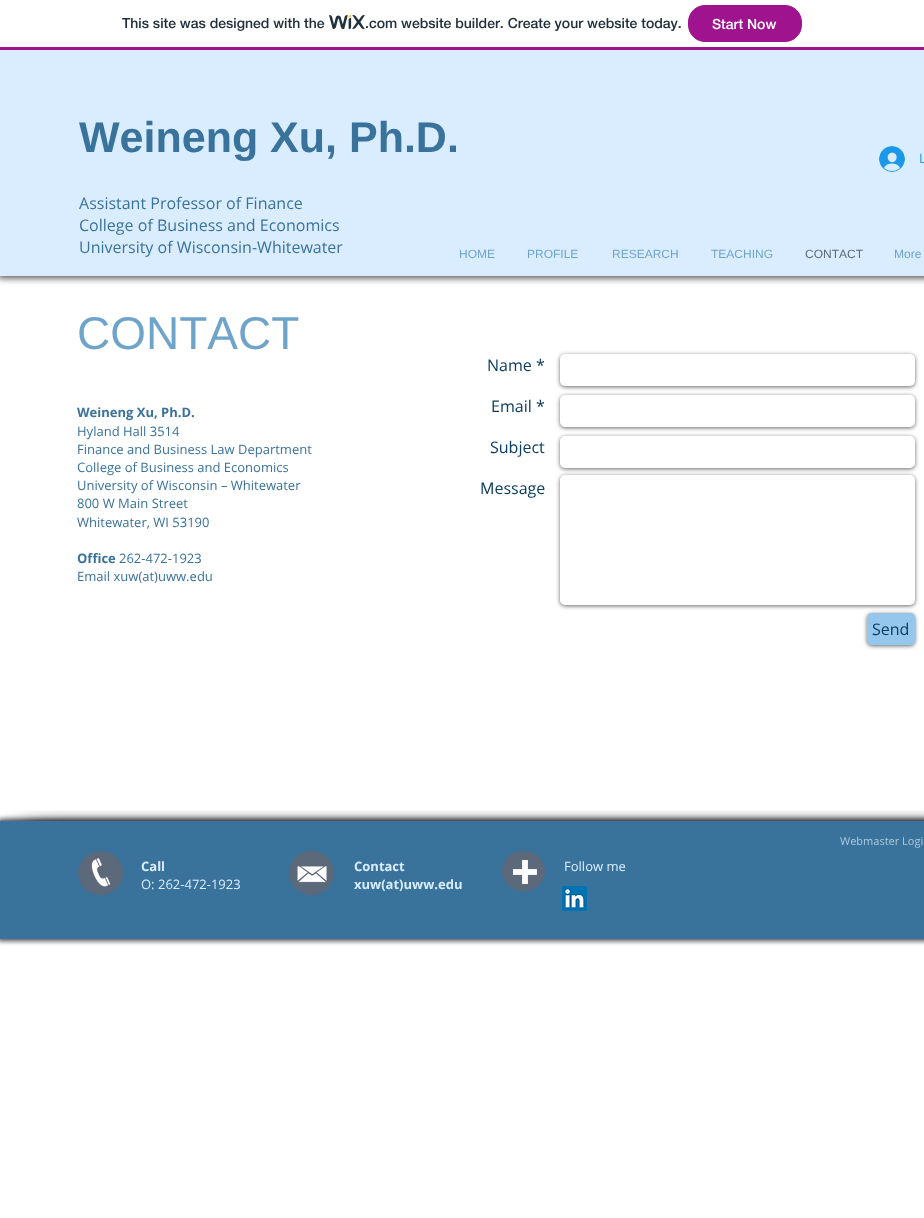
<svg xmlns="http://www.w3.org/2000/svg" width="924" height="1218">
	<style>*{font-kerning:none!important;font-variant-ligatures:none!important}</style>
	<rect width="100%" height="100%" fill="#FFFFFF" />
	<rect x="-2" y="48" width="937" height="230" fill="#000000" fill-opacity="0.7" filter="blur(3.5px)" />
	<rect x="0" y="40" width="924" height="7" fill="#FFFFFF" />
	<rect x="0" y="47" width="924" height="3" fill="#A0138E" />
	<text x="122" y="28" font-family="'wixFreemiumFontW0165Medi'" font-size="14" font-weight="500" fill="#20303C">This site was designed with the</text>
	<image x="329" y="15" width="36" height="15" href="assets/img1.png" />
	<text x="365" y="28" font-family="'wixFreemiumFontW0165Medi'" font-size="14" font-weight="500" fill="#20303C">.com website builder. Create your website today.</text>
	<rect x="688.5" y="5.5" width="113" height="36" rx="16.5" fill="#A0138E" stroke="#A0138E" />
	<text x="712" y="29" font-family="'wixFreemiumFontW0165Medi'" font-size="14" font-weight="500" fill="#FFFFFF">Start Now</text>
	<rect x="0" y="50" width="924" height="226" fill="#DAEDFF" />
	<text x="79" y="152" font-family="Liberation Sans" font-size="43" font-weight="700" fill="#39729B">Weineng Xu, Ph.D.</text>
	<image x="879" y="146" width="26" height="26" href="assets/img2.png" />
	<text x="919" y="163" font-family="Open Sans" font-size="13" fill="#1B99E8">L</text>
	<g font-family="Open Sans" font-size="16" fill="#39729B">
		<text x="79" y="209">Assistant Professor of Finance</text>
		<text x="79" y="231">College of Business and Economics</text>
		<text x="79" y="253">University of Wisconsin-Whitewater</text>
	</g>
	<g font-family="Liberation Sans" font-size="12" fill="#6EA4CA">
		<text x="459" y="258">HOME</text>
		<text x="527" y="258">PROFILE</text>
		<text x="612" y="258">RESEARCH</text>
		<text x="711" y="258">TEACHING</text>
	</g>
	<text x="805" y="258" font-family="Liberation Sans" font-size="12" fill="#5C697B">CONTACT</text>
	<text x="894" y="258" font-family="Liberation Sans" font-size="12" fill="#6EA4CA">More</text>
	<text x="77" y="349" font-family="Liberation Sans" font-size="46" fill="#6EA4CA">CONTACT</text>
	<text x="77" y="417" font-family="Open Sans" font-size="13" font-weight="700" fill="#39729B">Weineng Xu, Ph.D.</text>
	<g font-family="Open Sans" font-size="13" fill="#39729B">
		<text x="77" y="436">Hyland Hall 3514</text>
		<text x="77" y="454">Finance and Business Law Department</text>
		<text x="77" y="472">College of Business and Economics</text>
		<text x="77" y="490">University of Wisconsin – Whitewater</text>
		<text x="77" y="508">800 W Main Street</text>
		<text x="77" y="527">Whitewater, WI 53190</text>
	</g>
	<text x="77" y="563" font-family="Open Sans" font-size="13" font-weight="700" fill="#39729B">Office</text>
	<g font-family="Open Sans" font-size="13" fill="#39729B">
		<text x="119" y="563">262-472-1923</text>
		<text x="77" y="581">Email xuw(at)uww.edu</text>
	</g>
	<text x="487" y="371" font-family="Open Sans" font-size="16" fill="#0C3C60">Name *</text>
	<rect x="560" y="355" width="355" height="32" rx="5" fill="#000000" fill-opacity="0.6" filter="blur(2px)" />
	<rect x="560" y="354" width="355" height="32" rx="5" fill="#FFFFFF" />
	<text x="491" y="412" font-family="Open Sans" font-size="16" fill="#0C3C60">Email *</text>
	<rect x="560" y="396" width="355" height="32" rx="5" fill="#000000" fill-opacity="0.6" filter="blur(2px)" />
	<rect x="560" y="395" width="355" height="32" rx="5" fill="#FFFFFF" />
	<text x="490" y="453" font-family="Open Sans" font-size="16" fill="#0C3C60">Subject</text>
	<rect x="560" y="437" width="355" height="32" rx="5" fill="#000000" fill-opacity="0.6" filter="blur(2px)" />
	<rect x="560" y="436" width="355" height="32" rx="5" fill="#FFFFFF" />
	<text x="480" y="494" font-family="Open Sans" font-size="16" fill="#0C3C60">Message</text>
	<rect x="560" y="476" width="355" height="130" rx="5" fill="#000000" fill-opacity="0.6" filter="blur(2px)" />
	<rect x="560" y="475" width="355" height="130" rx="5" fill="#FFFFFF" />
	<rect x="867" y="614" width="48" height="32" rx="5" fill="#000000" fill-opacity="0.6" filter="blur(2px)" />
	<rect x="867" y="613" width="48" height="32" rx="5" fill="#95C6EC" />
	<text x="872" y="635" font-family="Open Sans" font-size="16" fill="#0C3C60">Send</text>
	<rect x="-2" y="819" width="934" height="122" fill="#000000" fill-opacity="0.7" filter="blur(2.5px)" />
	<rect x="0" y="821" width="924" height="118" fill="#39729B" />
	<image x="5" y="810" width="95" height="11" href="assets/img3.png" />
	<image x="100" y="810" width="780" height="11" href="assets/img4.png" />
	<image x="880" y="810" width="44" height="11" href="assets/img5.png" />
	<text x="840" y="845" font-family="Open Sans" font-size="11" fill="#AFCBE0">Webmaster Logi</text>
	<rect x="78" y="851" width="45" height="44" rx="22" fill="#5C697B" />
	<image x="91" y="858" width="20" height="29" href="assets/img6.png" />
	<text x="141" y="871" font-family="Open Sans" font-size="13" font-weight="700" fill="#DAEDFF">Call</text>
	<text x="141" y="889" font-family="Open Sans" font-size="13" fill="#DAEDFF">O: 262-472-1923</text>
	<rect x="289" y="851" width="45" height="44" rx="22" fill="#5C697B" />
	<image x="297" y="866" width="30" height="17" href="assets/img7.png" />
	<g font-family="Open Sans" font-size="13" font-weight="700" fill="#DAEDFF">
		<text x="354" y="871">Contact</text>
		<text x="354" y="889">xuw(at)uww.edu</text>
	</g>
	<ellipse cx="523.5" cy="871" rx="21.5" ry="20" fill="#5C697B" />
	<image x="513" y="860" width="24" height="24" href="assets/img8.png" />
	<text x="564" y="871" font-family="Open Sans" font-size="13" fill="#DAEDFF">Follow me</text>
	<image x="562" y="886" width="25" height="25" href="assets/img9.png" />
</svg>
